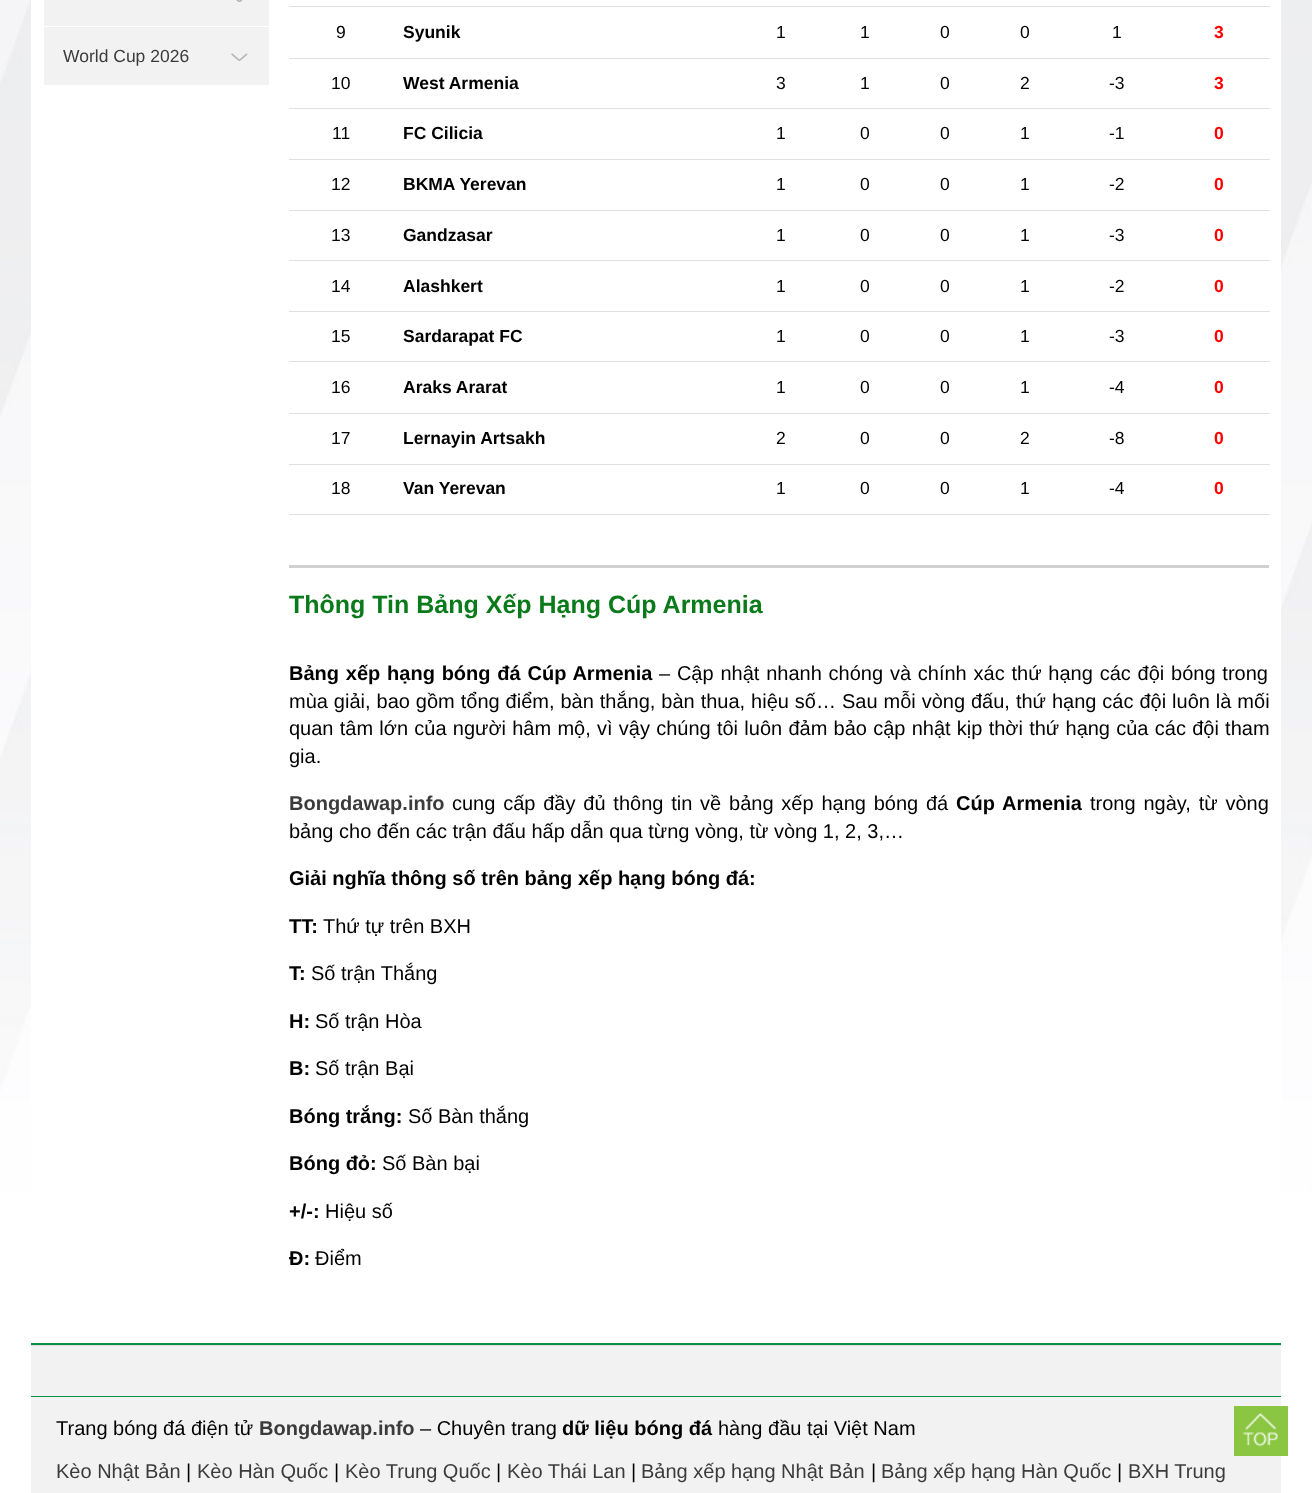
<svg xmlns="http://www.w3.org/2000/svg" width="1312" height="1493">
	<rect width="100%" height="100%" fill="#FFFFFF" />
	<image x="0" y="0" width="1312" height="1192" href="assets/img1.png" />
	<rect x="31" y="0" width="1250" height="1192" fill="#FFFFFF" />
	<rect x="44" y="0" width="225" height="85" fill="#F2F2F2" />
	<rect x="44" y="26" width="225" height="1" fill="#FFFFFF" />
	<image x="236" y="0" width="7" height="2" href="assets/img2.png" />
	<text x="63" y="62" font-family="Liberation Sans" font-size="17.5" fill="#3B3B3B">World Cup 2026</text>
	<image x="231" y="53" width="17" height="8" href="assets/img3.png" />
	<rect x="289" y="6" width="981" height="1" fill="#E0E0E0" />
	<rect x="289" y="58" width="981" height="1" fill="#E0E0E0" />
	<text x="336" y="38" font-family="Liberation Sans" font-size="17.5" fill="#000000">9</text>
	<text x="403" y="38" font-family="Liberation Sans" font-size="17.5" font-weight="700" fill="#000000">Syunik</text>
	<g font-family="Liberation Sans" font-size="17.5" fill="#000000">
		<text x="776" y="38">1</text>
		<text x="860" y="38">1</text>
		<text x="940" y="38">0</text>
		<text x="1020" y="38">0</text>
		<text x="1112" y="38">1</text>
	</g>
	<text x="1214" y="38" font-family="Liberation Sans" font-size="17.5" font-weight="700" fill="#FF0000">3</text>
	<rect x="289" y="108" width="981" height="1" fill="#E0E0E0" />
	<text x="331" y="89" font-family="Liberation Sans" font-size="17.5" fill="#000000">10</text>
	<text x="403" y="89" font-family="Liberation Sans" font-size="17.5" font-weight="700" fill="#000000">West Armenia</text>
	<g font-family="Liberation Sans" font-size="17.5" fill="#000000">
		<text x="776" y="89">3</text>
		<text x="860" y="89">1</text>
		<text x="940" y="89">0</text>
		<text x="1020" y="89">2</text>
		<text x="1109" y="89">-3</text>
	</g>
	<text x="1214" y="89" font-family="Liberation Sans" font-size="17.5" font-weight="700" fill="#FF0000">3</text>
	<rect x="289" y="159" width="981" height="1" fill="#E0E0E0" />
	<text x="332" y="139" font-family="Liberation Sans" font-size="17.5" fill="#000000">11</text>
	<text x="403" y="139" font-family="Liberation Sans" font-size="17.5" font-weight="700" fill="#000000">FC Cilicia</text>
	<g font-family="Liberation Sans" font-size="17.5" fill="#000000">
		<text x="776" y="139">1</text>
		<text x="860" y="139">0</text>
		<text x="940" y="139">0</text>
		<text x="1020" y="139">1</text>
		<text x="1109" y="139">-1</text>
	</g>
	<text x="1214" y="139" font-family="Liberation Sans" font-size="17.5" font-weight="700" fill="#FF0000">0</text>
	<rect x="289" y="210" width="981" height="1" fill="#E0E0E0" />
	<text x="331" y="190" font-family="Liberation Sans" font-size="17.5" fill="#000000">12</text>
	<text x="403" y="190" font-family="Liberation Sans" font-size="17.5" font-weight="700" fill="#000000">BKMA Yerevan</text>
	<g font-family="Liberation Sans" font-size="17.5" fill="#000000">
		<text x="776" y="190">1</text>
		<text x="860" y="190">0</text>
		<text x="940" y="190">0</text>
		<text x="1020" y="190">1</text>
		<text x="1109" y="190">-2</text>
	</g>
	<text x="1214" y="190" font-family="Liberation Sans" font-size="17.5" font-weight="700" fill="#FF0000">0</text>
	<rect x="289" y="260" width="981" height="1" fill="#E0E0E0" />
	<text x="331" y="241" font-family="Liberation Sans" font-size="17.5" fill="#000000">13</text>
	<text x="403" y="241" font-family="Liberation Sans" font-size="17.5" font-weight="700" fill="#000000">Gandzasar</text>
	<g font-family="Liberation Sans" font-size="17.5" fill="#000000">
		<text x="776" y="241">1</text>
		<text x="860" y="241">0</text>
		<text x="940" y="241">0</text>
		<text x="1020" y="241">1</text>
		<text x="1109" y="241">-3</text>
	</g>
	<text x="1214" y="241" font-family="Liberation Sans" font-size="17.5" font-weight="700" fill="#FF0000">0</text>
	<rect x="289" y="311" width="981" height="1" fill="#E0E0E0" />
	<text x="331" y="292" font-family="Liberation Sans" font-size="17.5" fill="#000000">14</text>
	<text x="403" y="292" font-family="Liberation Sans" font-size="17.5" font-weight="700" fill="#000000">Alashkert</text>
	<g font-family="Liberation Sans" font-size="17.5" fill="#000000">
		<text x="776" y="292">1</text>
		<text x="860" y="292">0</text>
		<text x="940" y="292">0</text>
		<text x="1020" y="292">1</text>
		<text x="1109" y="292">-2</text>
	</g>
	<text x="1214" y="292" font-family="Liberation Sans" font-size="17.5" font-weight="700" fill="#FF0000">0</text>
	<rect x="289" y="361" width="981" height="1" fill="#E0E0E0" />
	<text x="331" y="342" font-family="Liberation Sans" font-size="17.5" fill="#000000">15</text>
	<text x="403" y="342" font-family="Liberation Sans" font-size="17.5" font-weight="700" fill="#000000">Sardarapat FC</text>
	<g font-family="Liberation Sans" font-size="17.5" fill="#000000">
		<text x="776" y="342">1</text>
		<text x="860" y="342">0</text>
		<text x="940" y="342">0</text>
		<text x="1020" y="342">1</text>
		<text x="1109" y="342">-3</text>
	</g>
	<text x="1214" y="342" font-family="Liberation Sans" font-size="17.5" font-weight="700" fill="#FF0000">0</text>
	<rect x="289" y="413" width="981" height="1" fill="#E0E0E0" />
	<text x="331" y="393" font-family="Liberation Sans" font-size="17.5" fill="#000000">16</text>
	<text x="403" y="393" font-family="Liberation Sans" font-size="17.5" font-weight="700" fill="#000000">Araks Ararat</text>
	<g font-family="Liberation Sans" font-size="17.5" fill="#000000">
		<text x="776" y="393">1</text>
		<text x="860" y="393">0</text>
		<text x="940" y="393">0</text>
		<text x="1020" y="393">1</text>
		<text x="1109" y="393">-4</text>
	</g>
	<text x="1214" y="393" font-family="Liberation Sans" font-size="17.5" font-weight="700" fill="#FF0000">0</text>
	<rect x="289" y="464" width="981" height="1" fill="#E0E0E0" />
	<text x="331" y="444" font-family="Liberation Sans" font-size="17.5" fill="#000000">17</text>
	<text x="403" y="444" font-family="Liberation Sans" font-size="17.5" font-weight="700" fill="#000000">Lernayin Artsakh</text>
	<g font-family="Liberation Sans" font-size="17.5" fill="#000000">
		<text x="776" y="444">2</text>
		<text x="860" y="444">0</text>
		<text x="940" y="444">0</text>
		<text x="1020" y="444">2</text>
		<text x="1109" y="444">-8</text>
	</g>
	<text x="1214" y="444" font-family="Liberation Sans" font-size="17.5" font-weight="700" fill="#FF0000">0</text>
	<rect x="289" y="514" width="981" height="1" fill="#E0E0E0" />
	<text x="331" y="494" font-family="Liberation Sans" font-size="17.5" fill="#000000">18</text>
	<text x="403" y="494" font-family="Liberation Sans" font-size="17.5" font-weight="700" fill="#000000">Van Yerevan</text>
	<g font-family="Liberation Sans" font-size="17.5" fill="#000000">
		<text x="776" y="494">1</text>
		<text x="860" y="494">0</text>
		<text x="940" y="494">0</text>
		<text x="1020" y="494">1</text>
		<text x="1109" y="494">-4</text>
	</g>
	<text x="1214" y="494" font-family="Liberation Sans" font-size="17.5" font-weight="700" fill="#FF0000">0</text>
	<rect x="289" y="565" width="980" height="3" fill="#D0D0D0" />
	<text x="289" y="613" font-family="Liberation Sans" font-size="25" font-weight="700" fill="#0A7A1A">Thông Tin Bảng Xếp Hạng Cúp Armenia</text>
	<text x="289" y="680" word-spacing="1.25" font-family="Liberation Sans" font-size="20" font-weight="700" fill="#000000">Bảng xếp hạng bóng đá Cúp Armenia</text>
	<g font-family="Liberation Sans" font-size="20" fill="#000000">
		<text x="659" y="680" word-spacing="1.25">– Cập nhật nhanh chóng và chính xác thứ hạng các đội bóng trong</text>
		<text x="289" y="708" word-spacing="0.4">mùa giải, bao gồm tổng điểm, bàn thắng, bàn thua, hiệu số… Sau mỗi vòng đấu, thứ hạng các đội luôn là mối</text>
		<text x="289" y="735" word-spacing="0.7">quan tâm lớn của người hâm mộ, vì vậy chúng tôi luôn đảm bảo cập nhật kịp thời thứ hạng của các đội tham</text>
		<text x="289" y="763">gia.</text>
	</g>
	<text x="289" y="810" font-family="Liberation Sans" font-size="20" font-weight="700" fill="#3B3B3B">Bongdawap.info</text>
	<text x="452" y="810" word-spacing="2.25" font-family="Liberation Sans" font-size="20" fill="#000000">cung cấp đầy đủ thông tin về bảng xếp hạng bóng đá</text>
	<text x="956" y="810" word-spacing="2.25" font-family="Liberation Sans" font-size="20" font-weight="700" fill="#000000">Cúp Armenia</text>
	<g font-family="Liberation Sans" font-size="20" fill="#000000">
		<text x="1090" y="810" word-spacing="2.25">trong ngày, từ vòng</text>
		<text x="289" y="838">bảng cho đến các trận đấu hấp dẫn qua từng vòng, từ vòng 1, 2, 3,…</text>
	</g>
	<g font-family="Liberation Sans" font-size="20" font-weight="700" fill="#000000">
		<text x="289" y="885">Giải nghĩa thông số trên bảng xếp hạng bóng đá:</text>
		<text x="289" y="933">TT:</text>
	</g>
	<text x="323" y="933" font-family="Liberation Sans" font-size="20" fill="#000000">Thứ tự trên BXH</text>
	<text x="289" y="980" font-family="Liberation Sans" font-size="20" font-weight="700" fill="#000000">T:</text>
	<text x="311" y="980" font-family="Liberation Sans" font-size="20" fill="#000000">Số trận Thắng</text>
	<text x="289" y="1028" font-family="Liberation Sans" font-size="20" font-weight="700" fill="#000000">H:</text>
	<text x="315" y="1028" font-family="Liberation Sans" font-size="20" fill="#000000">Số trận Hòa</text>
	<text x="289" y="1075" font-family="Liberation Sans" font-size="20" font-weight="700" fill="#000000">B:</text>
	<text x="315" y="1075" font-family="Liberation Sans" font-size="20" fill="#000000">Số trận Bại</text>
	<text x="289" y="1123" font-family="Liberation Sans" font-size="20" font-weight="700" fill="#000000">Bóng trắng:</text>
	<text x="408" y="1123" font-family="Liberation Sans" font-size="20" fill="#000000">Số Bàn thắng</text>
	<text x="289" y="1170" font-family="Liberation Sans" font-size="20" font-weight="700" fill="#000000">Bóng đỏ:</text>
	<text x="382" y="1170" font-family="Liberation Sans" font-size="20" fill="#000000">Số Bàn bại</text>
	<text x="289" y="1218" font-family="Liberation Sans" font-size="20" font-weight="700" fill="#000000">+/-:</text>
	<text x="325" y="1218" font-family="Liberation Sans" font-size="20" fill="#000000">Hiệu số</text>
	<text x="289" y="1265" font-family="Liberation Sans" font-size="20" font-weight="700" fill="#000000">Đ:</text>
	<text x="315" y="1265" font-family="Liberation Sans" font-size="20" fill="#000000">Điểm</text>
	<rect x="31" y="1346" width="1250" height="147" fill="#F2F2F2" />
	<rect x="31" y="1343" width="1250" height="2" fill="#069241" />
	<rect x="31" y="1345" width="1250" height="1" fill="#DDDDDD" />
	<rect x="31" y="1396" width="1250" height="1" fill="#069241" />
	<text x="56" y="1435" font-family="Liberation Sans" font-size="20" fill="#000000">Trang bóng đá điện tử</text>
	<text x="259" y="1435" font-family="Liberation Sans" font-size="20" font-weight="700" fill="#3B3B3B">Bongdawap.info</text>
	<text x="420" y="1435" font-family="Liberation Sans" font-size="20" fill="#000000">– Chuyên trang</text>
	<text x="562" y="1435" font-family="Liberation Sans" font-size="20" font-weight="700" fill="#000000">dữ liệu bóng đá</text>
	<text x="718" y="1435" font-family="Liberation Sans" font-size="20" fill="#000000">hàng đầu tại Việt Nam</text>
	<text x="56" y="1478" font-family="Liberation Sans" font-size="20" fill="#3B3B3B">Kèo Nhật Bản</text>
	<text x="186" y="1478" font-family="Liberation Sans" font-size="20" fill="#000000">|</text>
	<text x="197" y="1478" font-family="Liberation Sans" font-size="20" fill="#3B3B3B">Kèo Hàn Quốc</text>
	<text x="334" y="1478" font-family="Liberation Sans" font-size="20" fill="#000000">|</text>
	<text x="345" y="1478" font-family="Liberation Sans" font-size="20" fill="#3B3B3B">Kèo Trung Quốc</text>
	<text x="496" y="1478" font-family="Liberation Sans" font-size="20" fill="#000000">|</text>
	<text x="507" y="1478" font-family="Liberation Sans" font-size="20" fill="#3B3B3B">Kèo Thái Lan</text>
	<text x="631" y="1478" font-family="Liberation Sans" font-size="20" fill="#000000">|</text>
	<text x="641" y="1478" font-family="Liberation Sans" font-size="20" fill="#3B3B3B">Bảng xếp hạng Nhật Bản</text>
	<text x="871" y="1478" font-family="Liberation Sans" font-size="20" fill="#000000">|</text>
	<text x="881" y="1478" font-family="Liberation Sans" font-size="20" fill="#3B3B3B">Bảng xếp hạng Hàn Quốc</text>
	<text x="1117" y="1478" font-family="Liberation Sans" font-size="20" fill="#000000">|</text>
	<text x="1128" y="1478" font-family="Liberation Sans" font-size="20" fill="#3B3B3B">BXH Trung</text>
	<rect x="1234" y="1406" width="54" height="50" fill="#8AC642" />
	<image x="1242" y="1412" width="36" height="35" href="assets/img4.png" />
</svg>
